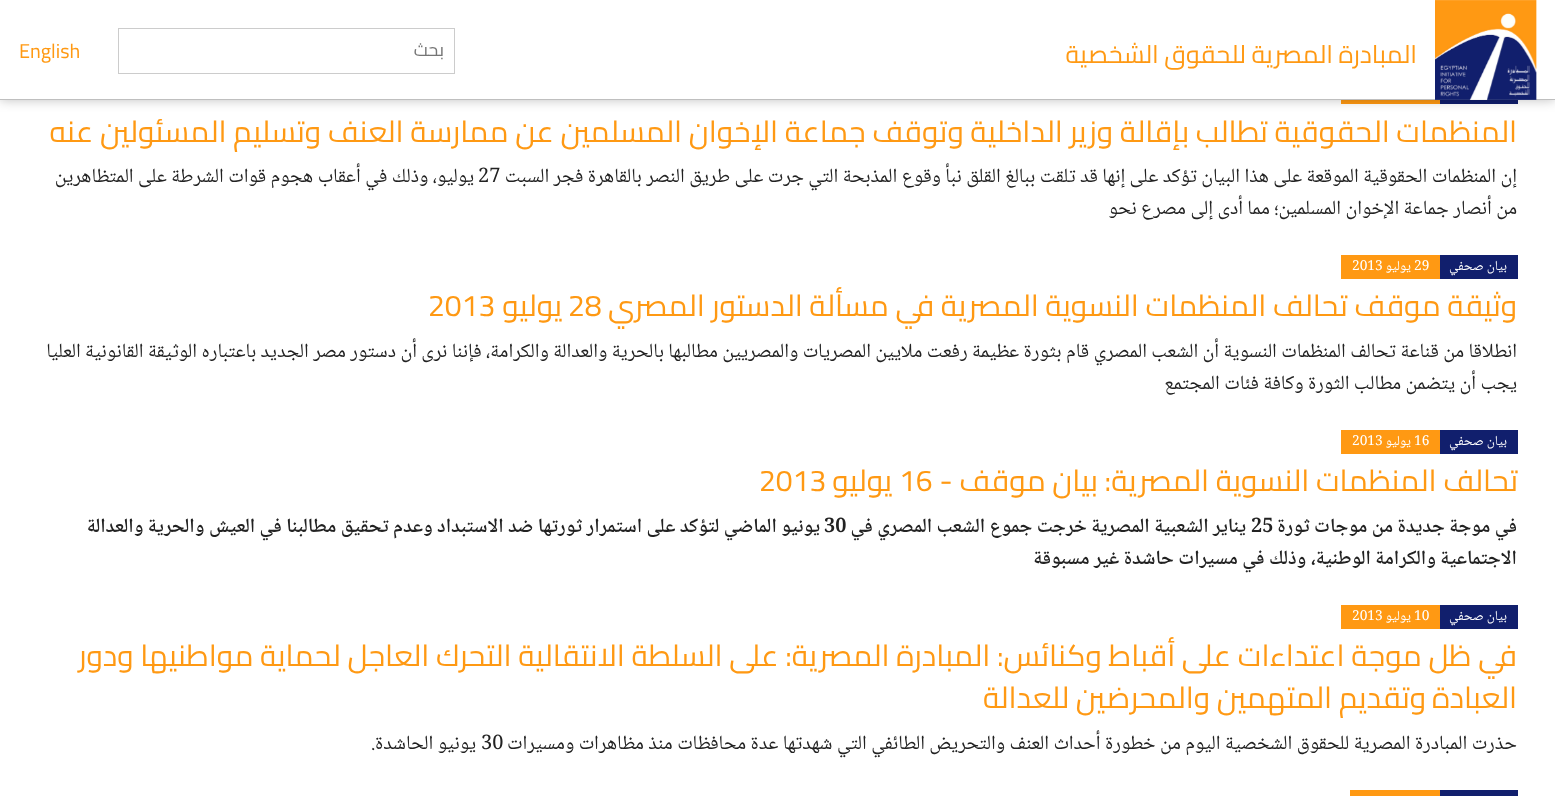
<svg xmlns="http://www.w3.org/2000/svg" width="1555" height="796">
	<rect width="100%" height="100%" fill="#FFFFFF" />
	<rect x="1440" y="100" width="78" height="4" fill="#111F6D" />
	<rect x="1341" y="100" width="99" height="4" fill="#FF9913" />
	<rect x="0" y="0" width="1555" height="100" fill="#000000" fill-opacity="0.25" filter="blur(6px)" />
	<rect x="0" y="0" width="1555" height="99" fill="#FFFFFF" />
	<rect x="0" y="99" width="1555" height="1" fill="#BFBFBF" />
	<image x="1435" y="0" width="102" height="100" href="assets/img1.png" />
	<text x="1417" y="63" font-family="Cairo" font-size="25" direction="rtl" fill="#FF9913">المبادرة المصرية للحقوق الشخصية</text>
	<rect x="118.5" y="28.5" width="336" height="45" fill="none" stroke="#CCCCCC" />
	<text x="444" y="56" font-family="Cairo" font-size="18" direction="rtl" fill="#757575">بحث</text>
	<text x="19" y="58" font-family="Cairo" font-size="20" fill="#FF9913">English</text>
	<text x="1517" y="142" font-family="Cairo" font-size="30" direction="rtl" fill="#FF9913">المنظمات الحقوقية تطالب بإقالة وزير الداخلية وتوقف جماعة الإخوان المسلمين عن ممارسة العنف وتسليم المسئولين عنه</text>
	<text x="1517" y="182" font-family="Noto Naskh Arabic" font-size="20" direction="rtl" fill="#222222">إن المنظمات الحقوقية الموقعة على هذا البيان تؤكد على إنها قد تلقت ببالغ القلق نبأ وقوع المذبحة التي جرت على طريق النصر بالقاهرة فجر السبت</text>
	<text x="478" y="182" font-family="Noto Naskh Arabic" font-size="20" fill="#222222">27</text>
	<g font-family="Noto Naskh Arabic" font-size="20" direction="rtl" fill="#222222">
		<text x="474" y="182">يوليو، وذلك في أعقاب هجوم قوات الشرطة على المتظاهرين</text>
		<text x="1517" y="214">من أنصار جماعة الإخوان المسلمين؛ مما أدى إلى مصرع نحو</text>
	</g>
	<rect x="1440" y="255" width="78" height="24" fill="#111F6D" />
	<text x="1507" y="270" font-family="Noto Naskh Arabic" font-size="13.75" direction="rtl" fill="#FFFFFF">بيان صحفي</text>
	<rect x="1341" y="255" width="99" height="24" fill="#FF9913" />
	<text x="1414" y="270" font-family="Noto Naskh Arabic" font-size="13.75" fill="#FFFFFF">29</text>
	<text x="1411" y="270" font-family="Noto Naskh Arabic" font-size="13.75" direction="rtl" fill="#FFFFFF">يوليو</text>
	<text x="1352" y="270" font-family="Noto Naskh Arabic" font-size="13.75" fill="#FFFFFF">2013</text>
	<text x="1517" y="316" font-family="Cairo" font-size="30" direction="rtl" fill="#FF9913">وثيقة موقف تحالف المنظمات النسوية المصرية في مسألة الدستور المصري</text>
	<text x="568" y="316" font-family="Cairo" font-size="30" fill="#FF9913">28</text>
	<text x="562" y="316" font-family="Cairo" font-size="30" direction="rtl" fill="#FF9913">يوليو</text>
	<text x="428" y="316" font-family="Cairo" font-size="30" fill="#FF9913">2013</text>
	<g font-family="Noto Naskh Arabic" font-size="20" direction="rtl" fill="#222222">
		<text x="1517" y="357">انطلاقا من قناعة تحالف المنظمات النسوية أن الشعب المصري قام بثورة عظيمة رفعت ملايين المصريات والمصريين مطالبها بالحرية والعدالة والكرامة، فإننا نرى أن دستور مصر الجديد باعتباره الوثيقة القانونية العليا</text>
		<text x="1517" y="389">يجب أن يتضمن مطالب الثورة وكافة فئات المجتمع</text>
	</g>
	<rect x="1440" y="430" width="78" height="24" fill="#111F6D" />
	<text x="1507" y="445" font-family="Noto Naskh Arabic" font-size="13.75" direction="rtl" fill="#FFFFFF">بيان صحفي</text>
	<rect x="1341" y="430" width="99" height="24" fill="#FF9913" />
	<text x="1414" y="445" font-family="Noto Naskh Arabic" font-size="13.75" fill="#FFFFFF">16</text>
	<text x="1411" y="445" font-family="Noto Naskh Arabic" font-size="13.75" direction="rtl" fill="#FFFFFF">يوليو</text>
	<text x="1352" y="445" font-family="Noto Naskh Arabic" font-size="13.75" fill="#FFFFFF">2013</text>
	<text x="1518" y="491" font-family="Cairo" font-size="30" direction="rtl" fill="#FF9913">تحالف المنظمات النسوية المصرية: بيان موقف -</text>
	<text x="899" y="491" font-family="Cairo" font-size="30" fill="#FF9913">16</text>
	<text x="892" y="491" font-family="Cairo" font-size="30" direction="rtl" fill="#FF9913">يوليو</text>
	<text x="759" y="491" font-family="Cairo" font-size="30" fill="#FF9913">2013</text>
	<text x="1517" y="532" font-family="Noto Naskh Arabic" font-size="20" font-weight="600" direction="rtl" fill="#222222">في موجة جديدة من موجات ثورة</text>
	<text x="1251" y="532" font-family="Noto Naskh Arabic" font-size="20" font-weight="600" fill="#222222">25</text>
	<text x="1246" y="532" font-family="Noto Naskh Arabic" font-size="20" font-weight="600" direction="rtl" fill="#222222">يناير الشعبية المصرية خرجت جموع الشعب المصري في</text>
	<text x="824" y="532" font-family="Noto Naskh Arabic" font-size="20" font-weight="600" fill="#222222">30</text>
	<g font-family="Noto Naskh Arabic" font-size="20" font-weight="600" direction="rtl" fill="#222222">
		<text x="820" y="532">يونيو الماضي لتؤكد على استمرار ثورتها ضد الاستبداد وعدم تحقيق مطالبنا في العيش والحرية والعدالة</text>
		<text x="1517" y="564">الاجتماعية والكرامة الوطنية، وذلك في مسيرات حاشدة غير مسبوقة</text>
	</g>
	<rect x="1440" y="605" width="78" height="24" fill="#111F6D" />
	<text x="1507" y="620" font-family="Noto Naskh Arabic" font-size="13.75" direction="rtl" fill="#FFFFFF">بيان صحفي</text>
	<rect x="1341" y="605" width="99" height="24" fill="#FF9913" />
	<text x="1414" y="620" font-family="Noto Naskh Arabic" font-size="13.75" fill="#FFFFFF">10</text>
	<text x="1411" y="620" font-family="Noto Naskh Arabic" font-size="13.75" direction="rtl" fill="#FFFFFF">يوليو</text>
	<text x="1352" y="620" font-family="Noto Naskh Arabic" font-size="13.75" fill="#FFFFFF">2013</text>
	<g font-family="Cairo" font-size="30" direction="rtl" fill="#FF9913">
		<text x="1517" y="666">في ظل موجة اعتداءات على أقباط وكنائس: المبادرة المصرية: على السلطة الانتقالية التحرك العاجل لحماية مواطنيها ودور</text>
		<text x="1517" y="708">العبادة</text>
		<text x="1426" y="708">وتقديم المتهمين والمحرضين للعدالة</text>
	</g>
	<text x="1517" y="749" font-family="Noto Naskh Arabic" font-size="20" direction="rtl" fill="#222222">حذرت المبادرة المصرية للحقوق الشخصية اليوم من خطورة أحداث العنف والتحريض الطائفي التي شهدتها عدة محافظات منذ مظاهرات ومسيرات</text>
	<text x="481" y="749" font-family="Noto Naskh Arabic" font-size="20" fill="#222222">30</text>
	<text x="476" y="749" font-family="Noto Naskh Arabic" font-size="20" direction="rtl" fill="#222222">يونيو الحاشدة.</text>
	<rect x="1440" y="790" width="78" height="6" fill="#111F6D" />
	<rect x="1350" y="790" width="90" height="6" fill="#FF9913" />
</svg>
